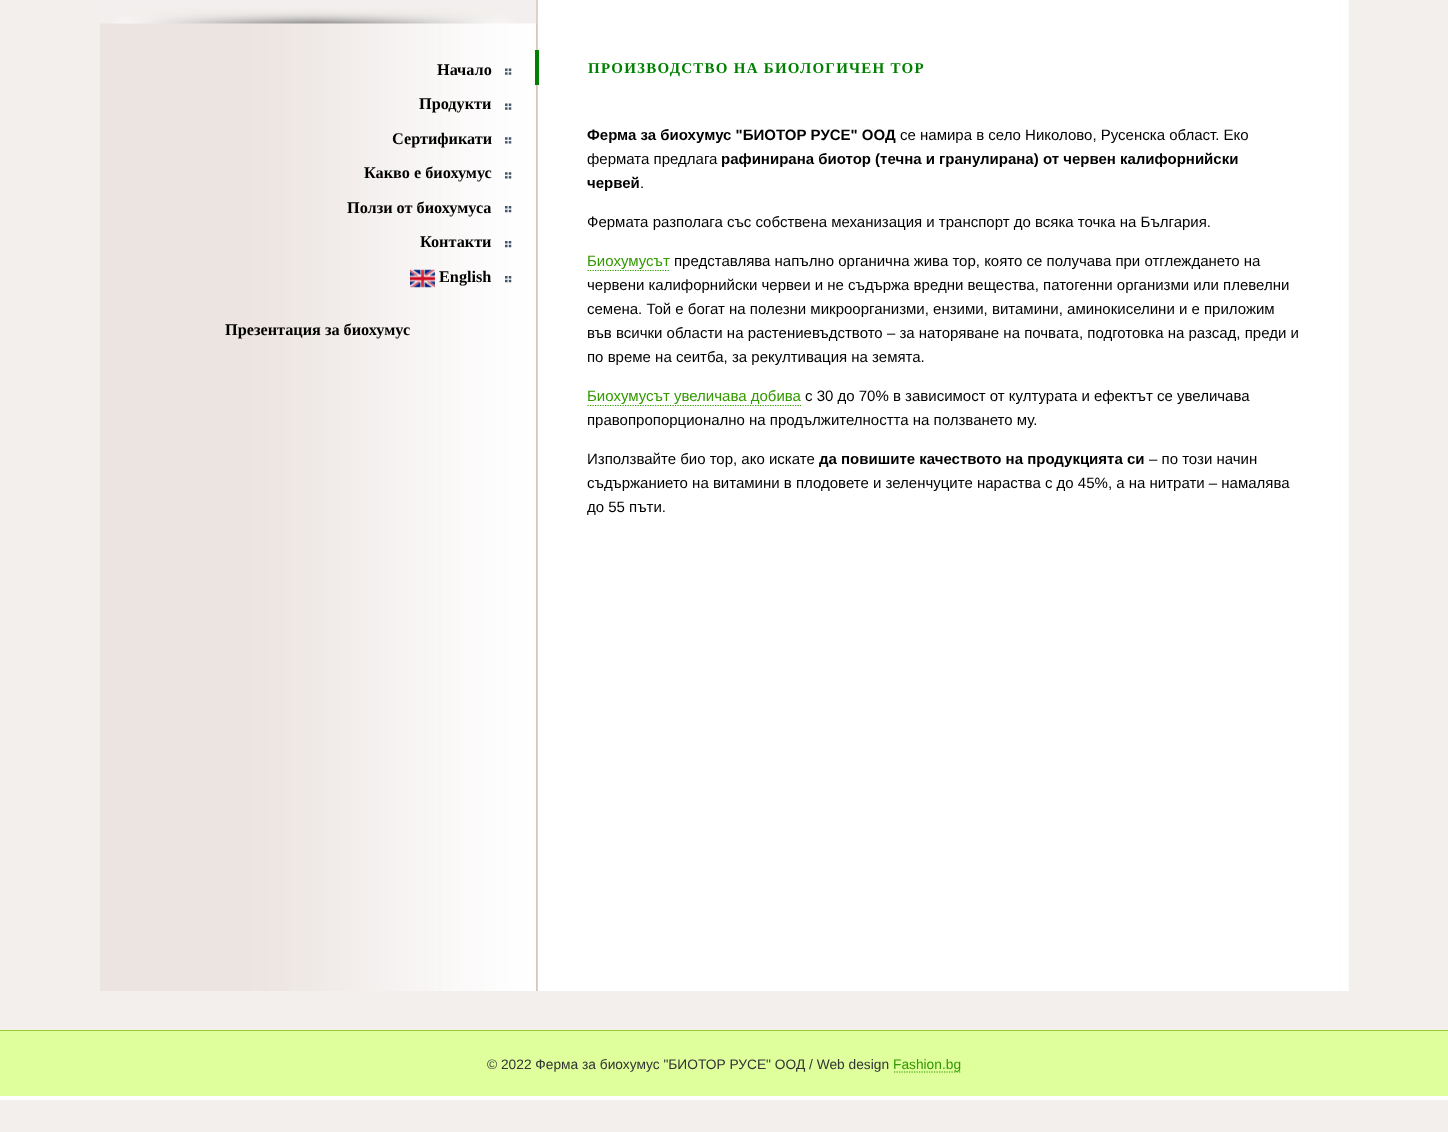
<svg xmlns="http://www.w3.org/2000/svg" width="1448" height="1132">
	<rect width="100%" height="100%" fill="#F3EFED" />
	<image x="100" y="0" width="1249" height="991" href="assets/img1.png" />
	<image x="100" y="0" width="437" height="24" href="assets/img2.png" />
	<image x="505" y="68" width="7" height="7" href="assets/img3.png" />
	<text x="437" y="75" font-family="Liberation Serif" font-size="16.25" font-weight="700" fill="#000000">Начало</text>
	<image x="505" y="103" width="7" height="7" href="assets/img3.png" />
	<text x="419" y="109" font-family="Liberation Serif" font-size="16.25" font-weight="700" fill="#000000">Продукти</text>
	<image x="505" y="137" width="7" height="7" href="assets/img4.png" />
	<text x="392" y="144" font-family="Liberation Serif" font-size="16.25" font-weight="700" fill="#000000">Сертификати</text>
	<image x="505" y="172" width="7" height="7" href="assets/img4.png" />
	<text x="364" y="178" font-family="Liberation Serif" font-size="16.25" font-weight="700" fill="#000000">Какво е биохумус</text>
	<image x="505" y="206" width="7" height="7" href="assets/img5.png" />
	<text x="347" y="213" font-family="Liberation Serif" font-size="16.25" font-weight="700" fill="#000000">Ползи от биохумуса</text>
	<image x="505" y="241" width="7" height="7" href="assets/img5.png" />
	<text x="420" y="247" font-family="Liberation Serif" font-size="16.25" font-weight="700" fill="#000000">Контакти</text>
	<image x="505" y="276" width="7" height="7" href="assets/img5.png" />
	<image x="410" y="269" width="25" height="19" href="assets/img6.png" />
	<g font-family="Liberation Serif" font-size="16.25" font-weight="700" fill="#000000">
		<text x="439" y="282">English</text>
		<text x="225" y="335">Презентация за биохумус</text>
	</g>
	<text x="588" y="73" font-family="Liberation Serif" font-size="15" font-weight="700" letter-spacing="1.25" fill="#008000">ПРОИЗВОДСТВО НА БИОЛОГИЧЕН ТОР</text>
	<rect x="535" y="50" width="4" height="35" fill="#008000" />
	<text x="587" y="140" font-family="Liberation Sans" font-size="15" font-weight="700" fill="#000000">Ферма за биохумус "БИОТОР РУСЕ" ООД</text>
	<g font-family="Liberation Sans" font-size="15" fill="#000000">
		<text x="900" y="140">се намира в село Николово, Русенска област. Еко</text>
		<text x="587" y="164">фермата предлага</text>
	</g>
	<g font-family="Liberation Sans" font-size="15" font-weight="700" fill="#000000">
		<text x="721" y="164">рафинирана биотор (течна и гранулирана) от червен калифорнийски</text>
		<text x="587" y="188">червей</text>
	</g>
	<g font-family="Liberation Sans" font-size="15" fill="#000000">
		<text x="640" y="188">.</text>
		<text x="587" y="227">Фермата разполага със собствена механизация и транспорт до всяка точка на България.</text>
	</g>
	<path d="M587.5 270.5H670" fill="none" stroke="#339900" stroke-width="1.2" stroke-dasharray="1.25 1.25" />
	<text x="587" y="266" font-family="Liberation Sans" font-size="15" fill="#339900">Биохумусът</text>
	<g font-family="Liberation Sans" font-size="15" fill="#000000">
		<text x="674" y="266">представлява напълно органична жива тор, която се получава при отглеждането на</text>
		<text x="587" y="290">червени калифорнийски червеи и не съдържа вредни вещества, патогенни организми или плевелни</text>
		<text x="587" y="314">семена. Той е богат на полезни микроорганизми, ензими, витамини, аминокиселини и е приложим</text>
		<text x="587" y="338">във всички области на растениевъдството – за наторяване на почвата, подготовка на разсад, преди и</text>
		<text x="587" y="362">по време на сеитба, за рекултивация на земята.</text>
	</g>
	<path d="M587.5 405.5H801" fill="none" stroke="#339900" stroke-width="1.2" stroke-dasharray="1.25 1.25" />
	<text x="587" y="401" font-family="Liberation Sans" font-size="15" fill="#339900">Биохумусът увеличава добива</text>
	<g font-family="Liberation Sans" font-size="15" fill="#000000">
		<text x="805" y="401">с 30 до 70% в зависимост от културата и ефектът се увеличава</text>
		<text x="587" y="425">правопропорционално на продължителността на ползването му.</text>
		<text x="587" y="464">Използвайте био тор, ако искате</text>
	</g>
	<text x="819" y="464" font-family="Liberation Sans" font-size="15" font-weight="700" fill="#000000">да повишите качеството на продукцията си</text>
	<g font-family="Liberation Sans" font-size="15" fill="#000000">
		<text x="1149" y="464">– по този начин</text>
		<text x="587" y="488">съдържанието на витамини в плодовете и зеленчуците нараства с до 45%, а на нитрати – намалява</text>
		<text x="587" y="512">до 55 пъти.</text>
	</g>
	<rect x="0" y="1031" width="1448" height="65" fill="#DEFF9C" />
	<rect x="0" y="1030" width="1448" height="1" fill="#99CC33" />
	<rect x="0" y="1096" width="1448" height="4" fill="#FFFFFF" />
	<text x="487" y="1069" font-family="Liberation Sans" font-size="13.75" fill="#333333">© 2022 Ферма за биохумус "БИОТОР РУСЕ" ООД / Web design</text>
	<path d="M894 1072H961" fill="none" stroke="#339900" stroke-width="1.2" stroke-dasharray="1.25 1.25" />
	<text x="893" y="1069" font-family="Liberation Sans" font-size="13.75" fill="#339900">Fashion.bg</text>
</svg>
